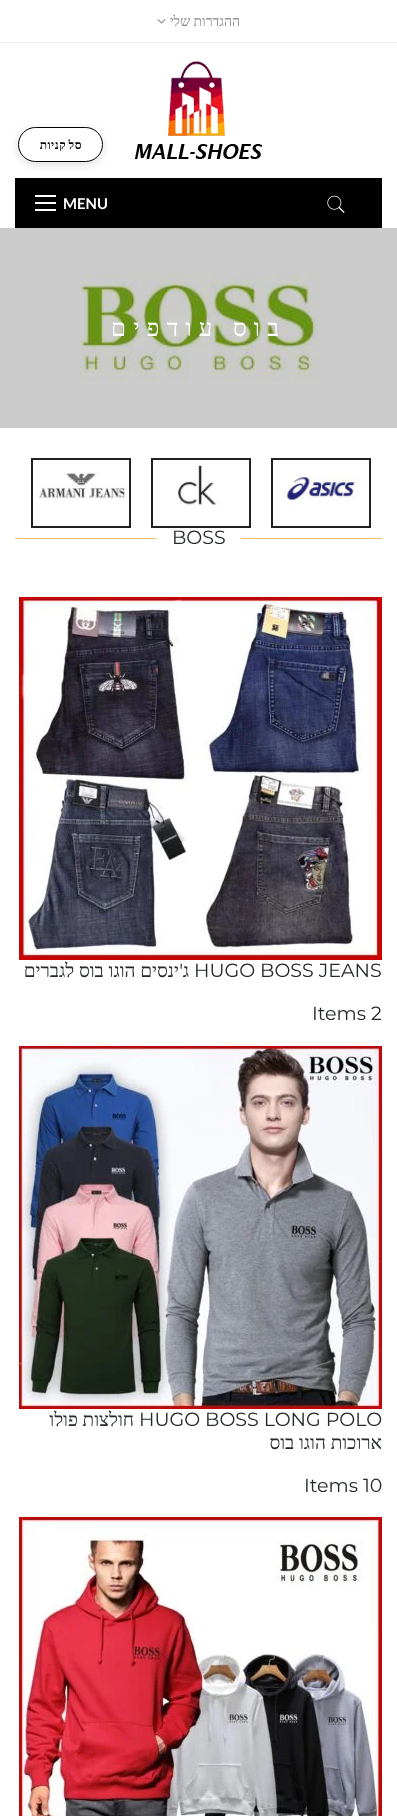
<svg xmlns="http://www.w3.org/2000/svg" width="397" height="1816">
	<rect width="100%" height="100%" fill="#FFFFFF" />
	<rect x="0" y="42" width="397" height="1" fill="#EEEEEE" />
	<text x="240" y="26" font-family="Liberation Serif" font-size="14" direction="rtl" fill="#888888">ההגדרות שלי</text>
	<image x="157" y="19" width="9" height="5" href="assets/img1.png" />
	<image x="135" y="61" width="127" height="98" href="assets/img2.png" />
	<rect x="15" y="178" width="367" height="50" fill="#000000" />
	<rect x="18" y="130" width="85" height="35" rx="17.5" fill="#000000" fill-opacity="0.12" filter="blur(5px)" />
	<rect x="18.5" y="127.5" width="84" height="34" rx="17" fill="#FFFFFF" stroke="#000000" />
	<text x="82" y="149" word-spacing="-1" font-family="Liberation Serif" font-size="12" font-weight="700" letter-spacing="0.5" direction="rtl" fill="#000000">סל קניות</text>
	<image x="327" y="195" width="18" height="18" href="assets/img3.png" />
	<text x="63" y="209" font-family="Lato" font-size="15" font-weight="700" fill="#FFFFFF">MENU</text>
	<rect x="35" y="202" width="21" height="2" fill="#FFFFFF" />
	<rect x="35" y="195" width="21" height="2" fill="#FFFFFF" />
	<rect x="35" y="209" width="21" height="2" fill="#FFFFFF" />
	<image x="0" y="228" width="397" height="200" href="assets/img4.png" />
	<text x="286" y="336" font-family="Liberation Serif" font-size="24" letter-spacing="7.25" direction="rtl" fill="#FFFFFF">בוס עודפים</text>
	<rect x="272" y="459" width="98" height="68" fill="none" stroke="#202020" stroke-width="2" />
	<image x="281" y="460" width="89" height="53" href="assets/img5.png" />
	<rect x="152" y="459" width="98" height="68" fill="none" stroke="#202020" stroke-width="2" />
	<image x="176" y="460" width="74" height="53" href="assets/img6.png" />
	<rect x="32" y="459" width="98" height="68" fill="none" stroke="#202020" stroke-width="2" />
	<image x="37" y="460" width="93" height="53" href="assets/img7.png" />
	<rect x="241" y="538" width="141" height="1" fill="#F7BE68" />
	<text x="172" y="544" font-family="Montserrat" font-size="19" fill="#25282C">BOSS</text>
	<rect x="15" y="538" width="141" height="1" fill="#F7BE68" />
	<image x="19" y="597" width="363" height="363" href="assets/img8.png" />
	<text x="194" y="977" font-family="Montserrat" font-size="19" fill="#25282C">HUGO BOSS JEANS</text>
	<text x="189" y="977" font-family="Liberation Serif" font-size="19" direction="rtl" fill="#25282C">ג</text>
	<text x="183" y="977" font-family="Montserrat" font-size="19" direction="rtl" fill="#25282C">'</text>
	<text x="179" y="977" font-family="Liberation Serif" font-size="19" direction="rtl" fill="#25282C">ינסים הוגו בוס לגברים</text>
	<text x="312" y="1020" font-family="Montserrat" font-size="19" fill="#25282C">Items 2</text>
	<image x="19" y="1046" width="363" height="363" href="assets/img9.png" />
	<text x="139" y="1426" font-family="Montserrat" font-size="19" fill="#25282C">HUGO BOSS LONG POLO</text>
	<g font-family="Liberation Serif" font-size="19" direction="rtl" fill="#25282C">
		<text x="134" y="1426">חולצות פולו</text>
		<text x="382" y="1449">ארוכות הוגו בוס</text>
	</g>
	<text x="304" y="1492" font-family="Montserrat" font-size="19" fill="#25282C">Items 10</text>
	<image x="19" y="1517" width="363" height="299" href="assets/img10.png" />
</svg>
